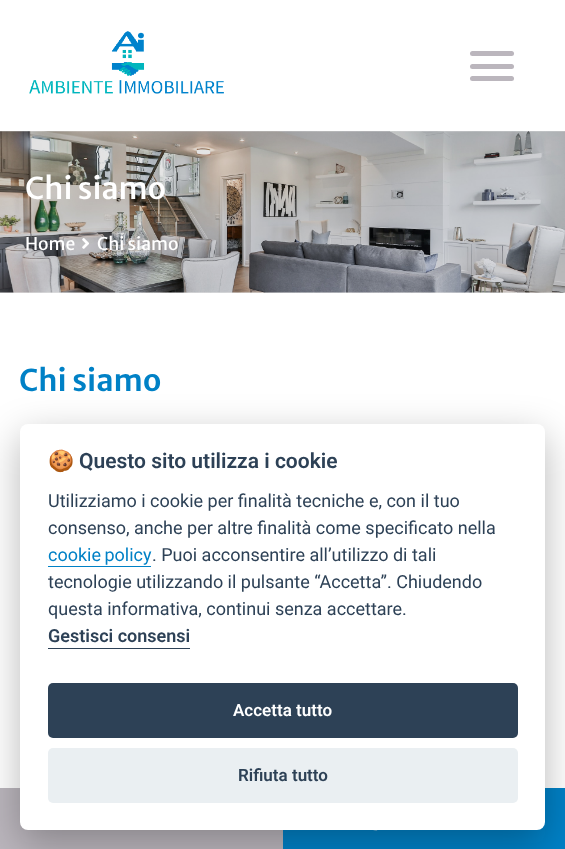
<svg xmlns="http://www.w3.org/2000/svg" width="565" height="849">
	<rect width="100%" height="100%" fill="#FFFFFF" />
	<rect x="0" y="131" width="565" height="162" fill="#E6E6E6" />
	<image x="29" y="31" width="195" height="63" href="assets/img1.png" />
	<rect x="470" y="64" width="44" height="5" rx="2.5" fill="#BBB6BD" />
	<rect x="470" y="51" width="44" height="5" rx="2.5" fill="#BBB6BD" />
	<rect x="470" y="76" width="44" height="5" rx="2.5" fill="#BBB6BD" />
	<image x="0" y="131" width="565" height="162" href="assets/img2.png" />
	<text x="25" y="199" font-family="Merriweather Sans" font-size="30" font-weight="500" fill="#FFFFFF">Chi siamo</text>
	<text x="25" y="250" font-family="Merriweather Sans" font-size="17.5" fill="#FFFFFF">Home</text>
	<image x="82" y="238" width="7" height="11" href="assets/img3.png" />
	<text x="97" y="250" font-family="Merriweather Sans" font-size="17.5" fill="#FFFFFF">Chi siamo</text>
	<text x="19" y="391" font-family="Merriweather Sans" font-size="30" font-weight="600" fill="#0081C6">Chi siamo</text>
	<rect x="0" y="788" width="283" height="61" fill="#BBB6BD" />
	<rect x="283" y="788" width="282" height="61" fill="#0081C6" />
	<image x="373" y="830" width="5" height="1" href="assets/img4.png" />
	<rect x="20" y="436" width="525" height="407" rx="8" fill="#020203" fill-opacity="0.28" filter="blur(19px)" />
	<rect x="20" y="424" width="525" height="406" rx="8" fill="#FFFFFF" />
	<text x="48" y="468" font-family="Noto Color Emoji" font-size="21" font-weight="700" fill="#2D4156">🍪</text>
	<text x="79" y="468" font-family="Roboto" font-size="21" font-weight="600" fill="#2D4156">Questo sito utilizza i cookie</text>
	<g font-family="Roboto" font-size="18" fill="#2D4156">
		<text x="48" y="507">Utilizziamo i cookie per finalità tecniche e, con il tuo</text>
		<text x="48" y="534">consenso, anche per altre finalità come specificato nella</text>
	</g>
	<text x="48" y="561" word-spacing="-1" font-family="Roboto" font-size="18" fill="#0081C6">cookie policy</text>
	<rect x="48" y="566" width="103" height="1" fill="#0081C6" />
	<g font-family="Roboto" font-size="18" fill="#2D4156">
		<text x="152" y="561">. Puoi acconsentire all’utilizzo di tali</text>
		<text x="48" y="588">tecnologie utilizzando il pulsante “Accetta”. Chiudendo</text>
		<text x="48" y="615">questa informativa, continui senza accettare.</text>
	</g>
	<text x="48" y="642" font-family="Roboto" font-size="18" font-weight="600" fill="#2D4156">Gestisci consensi</text>
	<rect x="48" y="648" width="142" height="1" fill="#2D4156" />
	<rect x="48" y="683" width="470" height="55" rx="5" fill="#2D4156" />
	<text x="233" y="716" font-family="Roboto" font-size="17" font-weight="600" fill="#FFFFFF">Accetta tutto</text>
	<rect x="48" y="748" width="470" height="55" rx="5" fill="#EAEFF2" />
	<text x="238" y="781" font-family="Roboto" font-size="17" font-weight="600" fill="#2D4156">Rifiuta tutto</text>
</svg>
